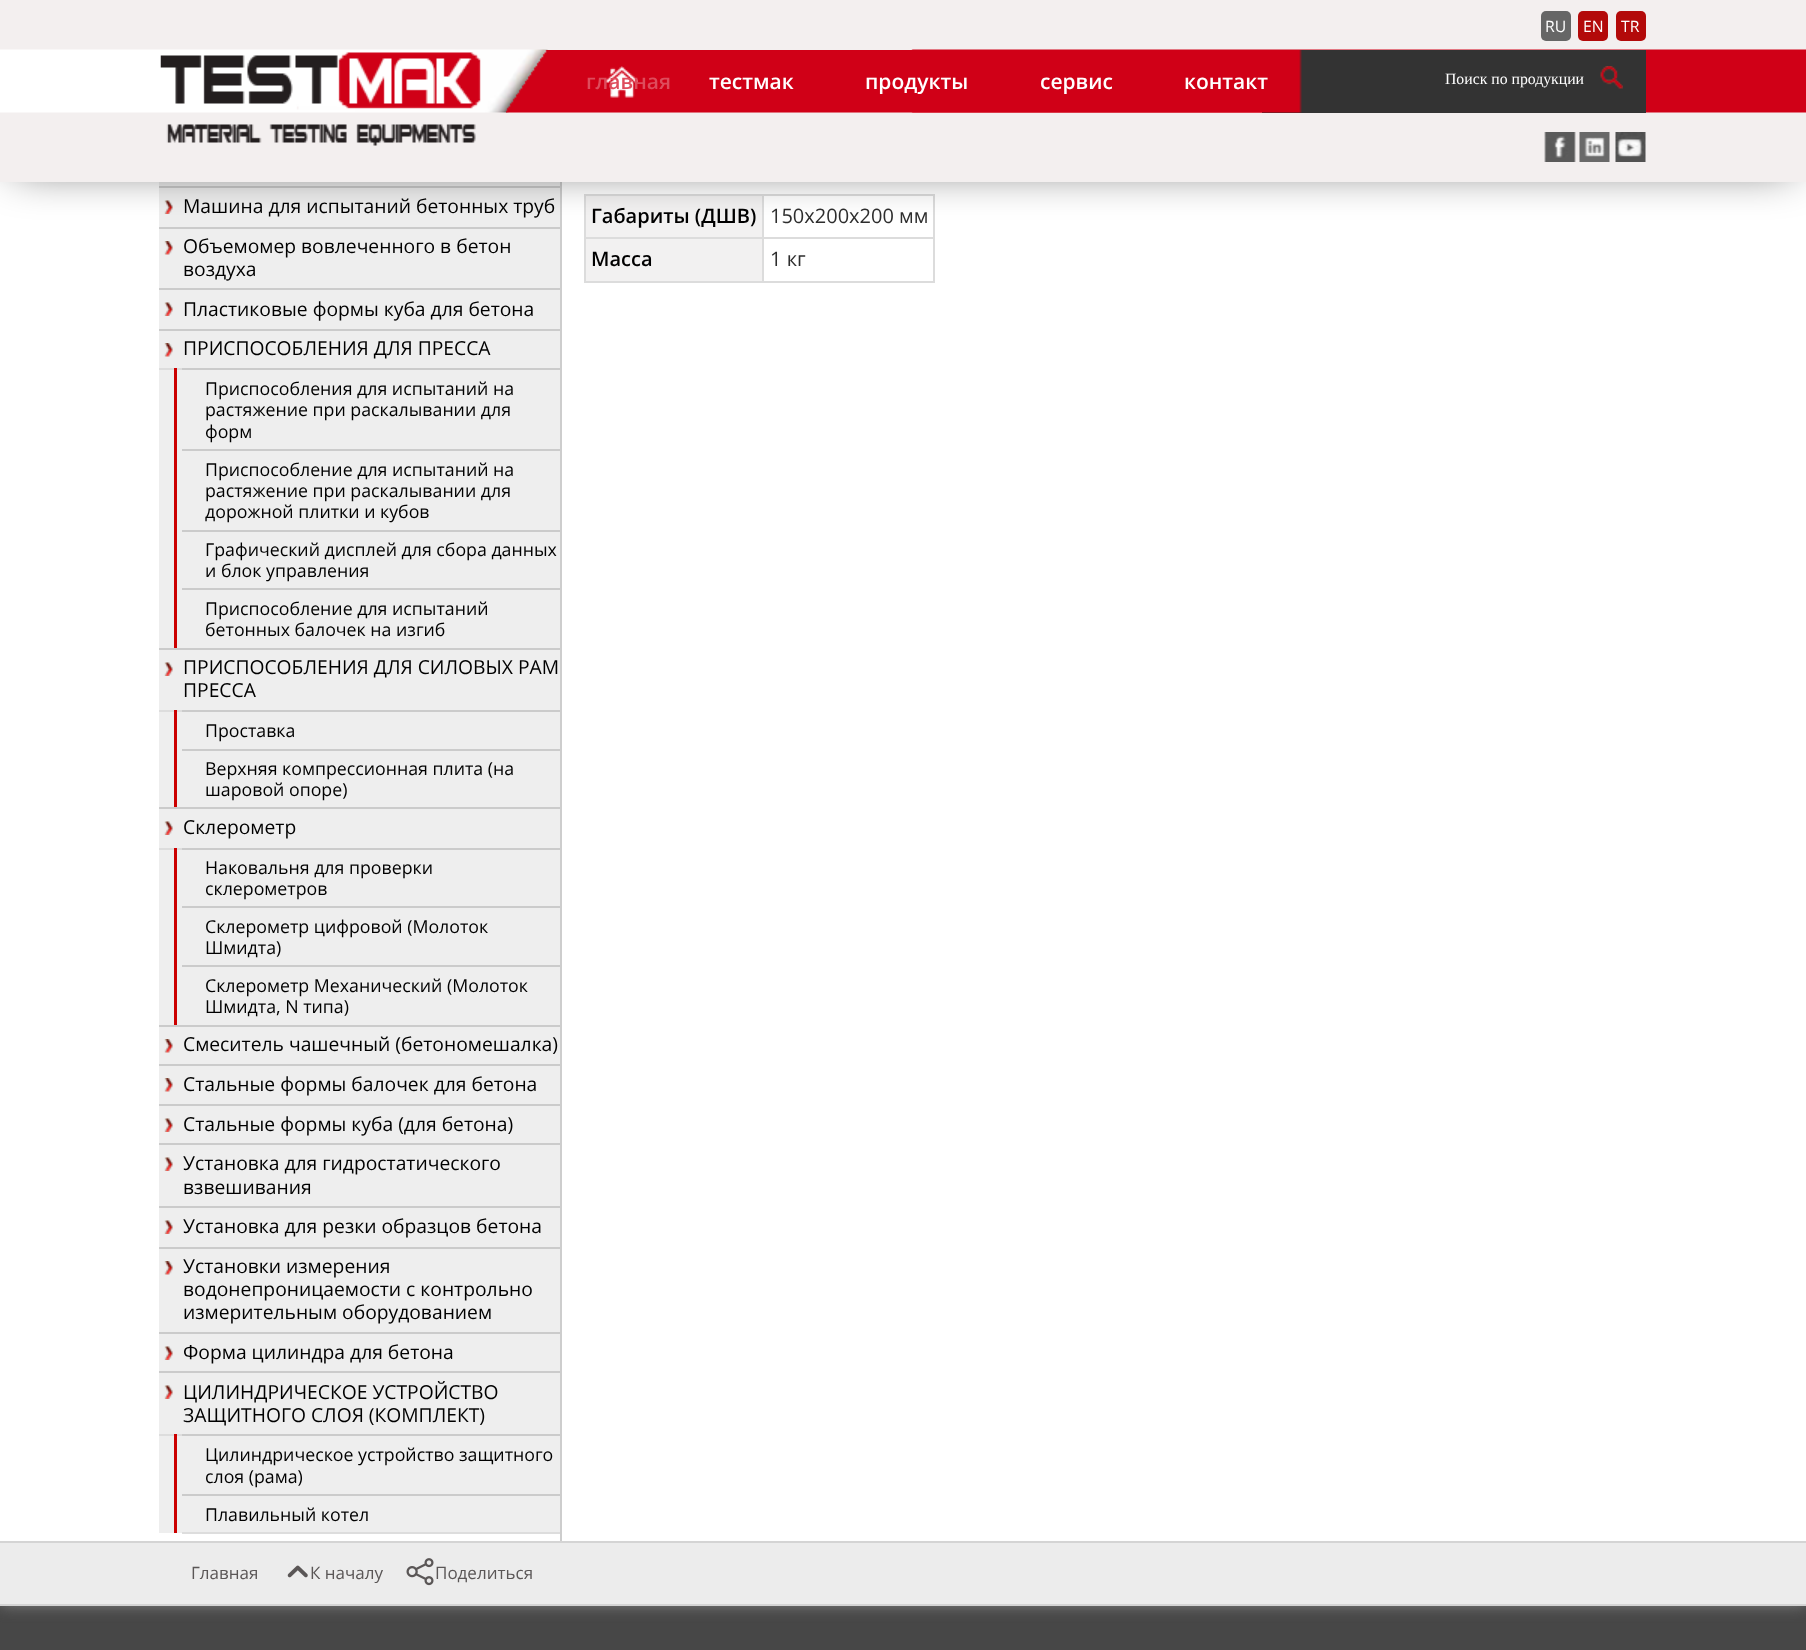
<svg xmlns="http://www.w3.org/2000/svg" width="1806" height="1650">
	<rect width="100%" height="100%" fill="#474747" />
	<rect x="0" y="-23" width="1806" height="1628" fill="#858585" filter="blur(7.5px)" />
	<rect x="0" y="182" width="1806" height="1359" fill="#FFFFFF" />
	<rect x="560" y="182" width="2" height="1359" fill="#CDCDCD" />
	<rect x="159" y="182" width="401" height="1351" fill="#EEEEEE" />
	<image x="164" y="200" width="9" height="14" href="assets/img9.png" />
	<rect x="159" y="186" width="401" height="2" fill="#CBCBCB" />
	<rect x="159" y="227" width="401" height="2" fill="#CBCBCB" />
	<rect x="586" y="196" width="176" height="41" fill="#F2F1F1" />
	<rect x="762" y="194" width="173" height="2" fill="#DCDCDC" />
	<rect x="762" y="237" width="173" height="2" fill="#DCDCDC" />
	<rect x="933" y="237" width="2" height="45" fill="#DCDCDC" />
	<rect x="762" y="281" width="173" height="2" fill="#DCDCDC" />
	<rect x="762" y="237" width="2" height="45" fill="#DCDCDC" />
	<rect x="584" y="237" width="180" height="2" fill="#DCDCDC" />
	<rect x="762" y="194" width="2" height="45" fill="#DCDCDC" />
	<rect x="584" y="194" width="180" height="2" fill="#DCDCDC" />
	<rect x="584" y="281" width="180" height="2" fill="#DCDCDC" />
	<rect x="584" y="237" width="2" height="45" fill="#DCDCDC" />
	<rect x="584" y="194" width="2" height="45" fill="#DCDCDC" />
	<rect x="933" y="194" width="2" height="45" fill="#DCDCDC" />
	<rect x="14" y="14" width="1779" height="154" fill="#000000" fill-opacity="0.65" filter="blur(22.5px)" />
	<rect x="0" y="0" width="1806" height="182" fill="#F3EFEF" />
	<image x="0" y="49" width="1806" height="64" href="assets/img1.png" />
	<rect x="1541" y="11" width="30" height="30" rx="5" fill="#666666" />
	<text x="1545" y="32" font-family="Open Sans" font-size="15.75" fill="#FFFFFF">RU</text>
	<rect x="1578" y="11" width="30" height="30" rx="5" fill="#B30A0A" />
	<text x="1583" y="32" font-family="Open Sans" font-size="15.75" fill="#FFFFFF">EN</text>
	<rect x="1616" y="11" width="30" height="30" rx="5" fill="#B30A0A" />
	<text x="1621" y="32" font-family="Open Sans" font-size="15.75" fill="#FFFFFF">TR</text>
	<image x="160" y="52" width="321" height="94" href="assets/img2.png" />
	<rect x="1262" y="50" width="384" height="63" fill="#333333" />
	<image x="506" y="50" width="796" height="63" href="assets/img3.png" />
	<image x="606" y="66" width="32" height="32" href="assets/img4.png" />
	<text x="586" y="89" font-family="Open Sans" font-size="21" font-weight="600" fill="#DE4C5C">главная</text>
	<g font-family="Open Sans" font-size="21" font-weight="600" fill="#FFFFFF">
		<text x="709" y="89">тестмак</text>
		<text x="865" y="89">продукты</text>
		<text x="1040" y="89">сервис</text>
		<text x="1184" y="89">контакт</text>
	</g>
	<text x="1445" y="84" font-family="Liberation Serif" font-size="15.75" fill="#FFFFFF">Поиск по продукции</text>
	<image x="1600" y="66" width="23" height="23" href="assets/img5.png" />
	<image x="1544" y="132" width="32" height="30" href="assets/img6.png" />
	<image x="1579" y="132" width="31" height="30" href="assets/img7.png" />
	<image x="1615" y="132" width="31" height="30" href="assets/img8.png" />
	<text x="183" y="213" font-family="Open Sans" font-size="19.3" fill="#000000">Машина для испытаний бетонных труб</text>
	<image x="164" y="241" width="9" height="14" href="assets/img10.png" />
	<g font-family="Open Sans" font-size="19.3" fill="#000000">
		<text x="183" y="253">Объемомер вовлеченного в бетон</text>
		<text x="183" y="276">воздуха</text>
	</g>
	<image x="164" y="302" width="9" height="14" href="assets/img9.png" />
	<rect x="159" y="288" width="401" height="2" fill="#CBCBCB" />
	<text x="183" y="316" font-family="Open Sans" font-size="19.3" fill="#000000">Пластиковые формы куба для бетона</text>
	<image x="164" y="343" width="9" height="14" href="assets/img10.png" />
	<rect x="159" y="329" width="401" height="2" fill="#CBCBCB" />
	<rect x="159" y="368" width="23" height="2" fill="#DDDDDD" />
	<text x="183" y="355" font-family="Open Sans" font-size="19.3" fill="#000000">ПРИСПОСОБЛЕНИЯ ДЛЯ ПРЕССА</text>
	<rect x="174" y="368" width="3" height="282" fill="#CC0000" />
	<rect x="182" y="368" width="378" height="2" fill="#CBCBCB" />
	<g font-family="Open Sans" font-size="17.75" fill="#000000">
		<text x="205" y="395">Приспособления для испытаний на</text>
		<text x="205" y="416">растяжение при раскалывании для</text>
		<text x="205" y="438">форм</text>
	</g>
	<rect x="182" y="449" width="378" height="2" fill="#CBCBCB" />
	<g font-family="Open Sans" font-size="17.75" fill="#000000">
		<text x="205" y="476">Приспособление для испытаний на</text>
		<text x="205" y="497">растяжение при раскалывании для</text>
		<text x="205" y="518">дорожной плитки и кубов</text>
	</g>
	<rect x="182" y="530" width="378" height="2" fill="#CBCBCB" />
	<g font-family="Open Sans" font-size="17.75" fill="#000000">
		<text x="205" y="556">Графический дисплей для сбора данных</text>
		<text x="205" y="577">и блок управления</text>
	</g>
	<rect x="182" y="588" width="378" height="2" fill="#CBCBCB" />
	<g font-family="Open Sans" font-size="17.75" fill="#000000">
		<text x="205" y="615">Приспособление для испытаний</text>
		<text x="205" y="636">бетонных балочек на изгиб</text>
	</g>
	<image x="164" y="662" width="9" height="14" href="assets/img9.png" />
	<rect x="159" y="648" width="401" height="2" fill="#CBCBCB" />
	<rect x="159" y="710" width="23" height="2" fill="#DDDDDD" />
	<g font-family="Open Sans" font-size="19.3" fill="#000000">
		<text x="183" y="674">ПРИСПОСОБЛЕНИЯ ДЛЯ СИЛОВЫХ РАМ</text>
		<text x="183" y="697">ПРЕССА</text>
	</g>
	<rect x="174" y="710" width="3" height="99" fill="#CC0000" />
	<rect x="182" y="710" width="378" height="2" fill="#CBCBCB" />
	<text x="205" y="737" font-family="Open Sans" font-size="17.75" fill="#000000">Проставка</text>
	<rect x="182" y="749" width="378" height="2" fill="#CBCBCB" />
	<g font-family="Open Sans" font-size="17.75" fill="#000000">
		<text x="205" y="775">Верхняя компрессионная плита (на</text>
		<text x="205" y="796">шаровой опоре)</text>
	</g>
	<image x="164" y="821" width="9" height="14" href="assets/img9.png" />
	<rect x="159" y="807" width="401" height="2" fill="#CBCBCB" />
	<rect x="159" y="848" width="23" height="2" fill="#DDDDDD" />
	<text x="183" y="834" font-family="Open Sans" font-size="19.3" fill="#000000">Склерометр</text>
	<rect x="174" y="848" width="3" height="178" fill="#CC0000" />
	<rect x="182" y="848" width="378" height="2" fill="#CBCBCB" />
	<g font-family="Open Sans" font-size="17.75" fill="#000000">
		<text x="205" y="874">Наковальня для проверки</text>
		<text x="205" y="895">склерометров</text>
	</g>
	<rect x="182" y="906" width="378" height="2" fill="#CBCBCB" />
	<g font-family="Open Sans" font-size="17.75" fill="#000000">
		<text x="205" y="933">Склерометр цифровой (Молоток</text>
		<text x="205" y="954">Шмидта)</text>
	</g>
	<rect x="182" y="965" width="378" height="2" fill="#CBCBCB" />
	<g font-family="Open Sans" font-size="17.75" fill="#000000">
		<text x="205" y="992">Склерометр Механический (Молоток</text>
		<text x="205" y="1013">Шмидта, N типа)</text>
	</g>
	<image x="164" y="1039" width="9" height="14" href="assets/img10.png" />
	<rect x="159" y="1025" width="401" height="2" fill="#CBCBCB" />
	<text x="183" y="1051" font-family="Open Sans" font-size="19.3" fill="#000000">Смеситель чашечный (бетономешалка)</text>
	<image x="164" y="1078" width="9" height="14" href="assets/img10.png" />
	<rect x="159" y="1064" width="401" height="2" fill="#CBCBCB" />
	<text x="183" y="1091" font-family="Open Sans" font-size="19.3" fill="#000000">Стальные формы балочек для бетона</text>
	<image x="164" y="1118" width="9" height="14" href="assets/img9.png" />
	<rect x="159" y="1104" width="401" height="2" fill="#CBCBCB" />
	<text x="183" y="1131" font-family="Open Sans" font-size="19.3" fill="#000000">Стальные формы куба (для бетона)</text>
	<image x="164" y="1157" width="9" height="14" href="assets/img9.png" />
	<rect x="159" y="1143" width="401" height="2" fill="#CBCBCB" />
	<g font-family="Open Sans" font-size="19.3" fill="#000000">
		<text x="183" y="1170">Установка для гидростатического</text>
		<text x="183" y="1194">взвешивания</text>
	</g>
	<image x="164" y="1220" width="9" height="14" href="assets/img9.png" />
	<rect x="159" y="1206" width="401" height="2" fill="#CBCBCB" />
	<text x="183" y="1233" font-family="Open Sans" font-size="19.3" fill="#000000">Установка для резки образцов бетона</text>
	<image x="164" y="1261" width="9" height="14" href="assets/img10.png" />
	<rect x="159" y="1247" width="401" height="2" fill="#CBCBCB" />
	<g font-family="Open Sans" font-size="19.3" fill="#000000">
		<text x="183" y="1273">Установки измерения</text>
		<text x="183" y="1296">водонепроницаемости с контрольно</text>
		<text x="183" y="1319">измерительным оборудованием</text>
	</g>
	<image x="164" y="1346" width="9" height="14" href="assets/img9.png" />
	<rect x="159" y="1332" width="401" height="2" fill="#CBCBCB" />
	<text x="183" y="1359" font-family="Open Sans" font-size="19.3" fill="#000000">Форма цилиндра для бетона</text>
	<image x="164" y="1385" width="9" height="14" href="assets/img9.png" />
	<rect x="159" y="1371" width="401" height="2" fill="#CBCBCB" />
	<rect x="159" y="1434" width="23" height="2" fill="#DDDDDD" />
	<g font-family="Open Sans" font-size="19.3" fill="#000000">
		<text x="183" y="1399">ЦИЛИНДРИЧЕСКОЕ УСТРОЙСТВО</text>
		<text x="183" y="1422">ЗАЩИТНОГО СЛОЯ (КОМПЛЕКТ)</text>
	</g>
	<rect x="174" y="1434" width="3" height="99" fill="#CC0000" />
	<rect x="182" y="1434" width="378" height="2" fill="#CBCBCB" />
	<g font-family="Open Sans" font-size="17.75" fill="#000000">
		<text x="205" y="1461">Цилиндрическое устройство защитного</text>
		<text x="205" y="1483">слоя (рама)</text>
	</g>
	<rect x="182" y="1494" width="378" height="2" fill="#CBCBCB" />
	<rect x="182" y="1532" width="378" height="2" fill="#DDDDDD" />
	<text x="205" y="1521" font-family="Open Sans" font-size="17.75" fill="#000000">Плавильный котел</text>
	<text x="591" y="223" font-family="Open Sans" font-size="20" font-weight="600" fill="#000000">Габариты (ДШВ)</text>
	<text x="770" y="223" font-family="Open Sans" font-size="20" fill="#2D2D2D">150x200x200 мм</text>
	<rect x="586" y="239" width="176" height="42" fill="#F2F1F1" />
	<text x="591" y="266" font-family="Open Sans" font-size="20" font-weight="600" fill="#000000">Масса</text>
	<text x="770" y="266" font-family="Open Sans" font-size="20" fill="#2D2D2D">1 кг</text>
	<rect x="0" y="1543" width="1806" height="61" fill="#ECECEC" />
	<rect x="0" y="1541" width="1806" height="2" fill="#D4D4D4" />
	<rect x="0" y="1604" width="1806" height="2" fill="#D4D4D4" />
	<text x="191" y="1579" font-family="Open Sans" font-size="17" fill="#5A5656">Главная</text>
	<image x="287" y="1565" width="21" height="13" href="assets/img11.png" />
	<text x="310" y="1579" font-family="Open Sans" font-size="17" fill="#5A5656">К началу</text>
	<image x="406" y="1558" width="28" height="28" href="assets/img12.png" />
	<text x="435" y="1579" font-family="Open Sans" font-size="17" fill="#5A5656">Поделиться</text>
</svg>
